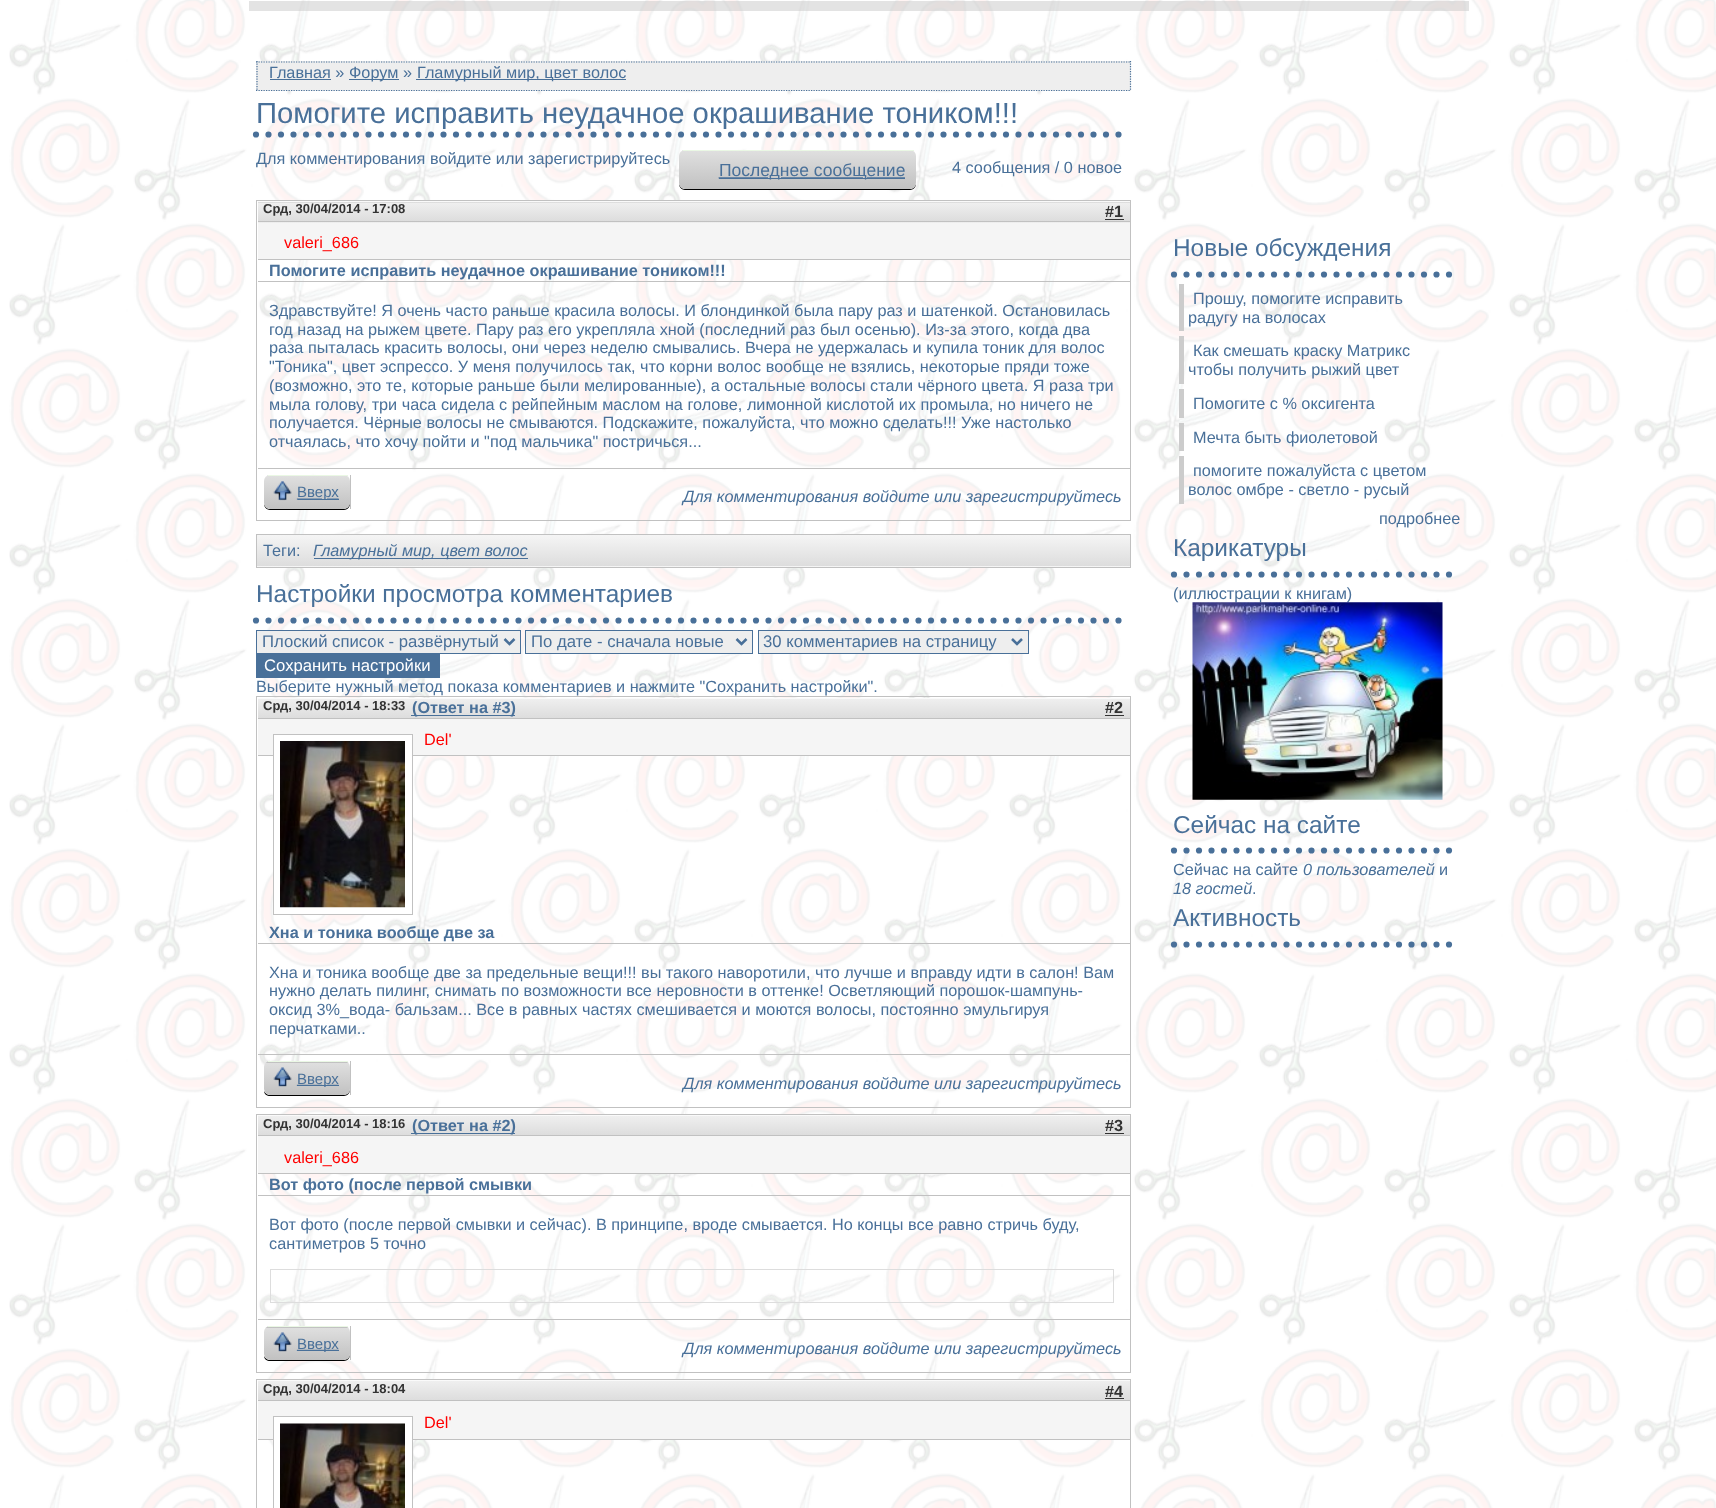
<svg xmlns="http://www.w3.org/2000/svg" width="1716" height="1508">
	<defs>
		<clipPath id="clip1"><rect x="679" y="150" width="237" height="39" rx="6" /></clipPath>
		<linearGradient id="g1" gradientUnits="userSpaceOnUse" x1="679" y1="114" x2="679" y2="151"><stop offset="0" stop-color="#DFDFDF" /><stop offset="1" stop-color="#C1C1C1" /></linearGradient>
		<linearGradient id="g2" gradientUnits="userSpaceOnUse" x1="679" y1="151" x2="679" y2="189"><stop offset="0" stop-color="#DFDFDF" /><stop offset="1" stop-color="#C1C1C1" /></linearGradient>
		<linearGradient id="g3" gradientUnits="userSpaceOnUse" x1="258" y1="184" x2="258" y2="203"><stop offset="0" stop-color="#EFEFEF" /><stop offset="1" stop-color="#DDDDDD" /></linearGradient>
		<linearGradient id="g4" gradientUnits="userSpaceOnUse" x1="258" y1="203" x2="258" y2="221"><stop offset="0" stop-color="#EFEFEF" /><stop offset="1" stop-color="#DDDDDD" /></linearGradient>
		<linearGradient id="g5" gradientUnits="userSpaceOnUse" x1="258" y1="221" x2="258" y2="240"><stop offset="0" stop-color="#EFEFEF" /><stop offset="1" stop-color="#DDDDDD" /></linearGradient>
		<clipPath id="clip2"><rect x="264" y="475" width="86" height="34" rx="6" /></clipPath>
		<linearGradient id="g6" gradientUnits="userSpaceOnUse" x1="264" y1="444" x2="264" y2="476"><stop offset="0" stop-color="#DFDFDF" /><stop offset="1" stop-color="#C1C1C1" /></linearGradient>
		<linearGradient id="g7" gradientUnits="userSpaceOnUse" x1="264" y1="476" x2="264" y2="509"><stop offset="0" stop-color="#DFDFDF" /><stop offset="1" stop-color="#C1C1C1" /></linearGradient>
		<linearGradient id="g8" gradientUnits="userSpaceOnUse" x1="258" y1="535" x2="258" y2="566"><stop offset="0" stop-color="#F5F5F5" /><stop offset="1" stop-color="#DDDDDD" /></linearGradient>
		<linearGradient id="g9" gradientUnits="userSpaceOnUse" x1="258" y1="566" x2="258" y2="598"><stop offset="0" stop-color="#F5F5F5" /><stop offset="1" stop-color="#DDDDDD" /></linearGradient>
		<linearGradient id="g10" gradientUnits="userSpaceOnUse" x1="258" y1="699" x2="258" y2="718"><stop offset="0" stop-color="#EFEFEF" /><stop offset="1" stop-color="#DDDDDD" /></linearGradient>
		<clipPath id="clip3"><rect x="264" y="1061" width="86" height="34" rx="6" /></clipPath>
		<linearGradient id="g11" gradientUnits="userSpaceOnUse" x1="264" y1="1030" x2="264" y2="1063"><stop offset="0" stop-color="#DFDFDF" /><stop offset="1" stop-color="#C1C1C1" /></linearGradient>
		<linearGradient id="g12" gradientUnits="userSpaceOnUse" x1="264" y1="1063" x2="264" y2="1095"><stop offset="0" stop-color="#DFDFDF" /><stop offset="1" stop-color="#C1C1C1" /></linearGradient>
		<linearGradient id="g13" gradientUnits="userSpaceOnUse" x1="258" y1="1116" x2="258" y2="1135"><stop offset="0" stop-color="#EFEFEF" /><stop offset="1" stop-color="#DDDDDD" /></linearGradient>
		<clipPath id="clip4"><rect x="264" y="1326" width="86" height="34" rx="6" /></clipPath>
		<linearGradient id="g14" gradientUnits="userSpaceOnUse" x1="264" y1="1295" x2="264" y2="1328"><stop offset="0" stop-color="#DFDFDF" /><stop offset="1" stop-color="#C1C1C1" /></linearGradient>
		<linearGradient id="g15" gradientUnits="userSpaceOnUse" x1="264" y1="1328" x2="264" y2="1360"><stop offset="0" stop-color="#DFDFDF" /><stop offset="1" stop-color="#C1C1C1" /></linearGradient>
		<linearGradient id="g16" gradientUnits="userSpaceOnUse" x1="258" y1="1381" x2="258" y2="1400"><stop offset="0" stop-color="#EFEFEF" /><stop offset="1" stop-color="#DDDDDD" /></linearGradient>
	</defs>
	<rect width="100%" height="100%" fill="#FFFFFF" />
	<image x="9" y="0" width="1707" height="1508" href="assets/img1.png" />
	<rect x="249" y="1" width="1220" height="10" fill="#C8C8C8" fill-opacity="0.5" />
	<rect x="256" y="61" width="875" height="30" fill="#EEEEEE" />
	<path d="M256 62H1131" fill="none" stroke="#497099" stroke-width="1.2" stroke-dasharray="1.25 1.25" />
	<path d="M1130.5 61V91" fill="none" stroke="#497099" stroke-width="1.2" stroke-dasharray="1.25 1.25" />
	<path d="M256 90.5H1131" fill="none" stroke="#497099" stroke-width="1.2" stroke-dasharray="1.25 1.25" />
	<path d="M257 61V91" fill="none" stroke="#497099" stroke-width="1.2" stroke-dasharray="1.25 1.25" />
	<text x="269" y="78" font-family="Liberation Sans" font-size="16.25" fill="#497099">Главная »</text>
	<rect x="270" y="79" width="61" height="1" fill="#497099" />
	<rect x="349" y="79" width="50" height="1" fill="#497099" />
	<text x="349" y="78" font-family="Liberation Sans" font-size="16.25" fill="#497099">Форум »</text>
	<rect x="416" y="79" width="210" height="1" fill="#497099" />
	<text x="417" y="78" font-family="Liberation Sans" font-size="16.25" fill="#497099">Гламурный мир, цвет волос</text>
	<path d="M256 134.5H1131" fill="none" stroke="#497099" stroke-width="6.2" stroke-linecap="round" stroke-dasharray="0 12.5" />
	<text x="256" y="123" font-family="Liberation Sans" font-size="29.25" fill="#497099">Помогите исправить неудачное окрашивание тоником!!!</text>
	<text x="256" y="164" font-family="Liberation Sans" font-size="16.25" fill="#497099">Для комментирования войдите или зарегистрируйтесь</text>
	<path d="M679 184C679 187 682 190 685 190H910C913 190 916 187 916 184C915 187 913 189 910 189H685C682 189 680 187 679 184Z" fill="#000000" />
	<g clip-path="url(#clip1)">
		<rect x="679" y="150" width="4" height="1" fill="url(#g1)" />
		<path d="M679 151H916V183C916 186.5 913.5 189 910 189H685C681.5 189 679 186.5 679 183Z" fill="url(#g2)" />
	</g>
	<rect x="683" y="150" width="231" height="1" fill="#EAF8E4" />
	<image x="718" y="177" width="187" height="2" href="assets/img2.png" />
	<rect x="719" y="178" width="186" height="1" fill="#497099" />
	<text x="719" y="176" font-family="Liberation Sans" font-size="17.5" fill="#497099">Последнее сообщение</text>
	<text x="952" y="173" font-family="Liberation Sans" font-size="16.25" fill="#497099">4 сообщения / 0 новое</text>
	<rect x="256.5" y="200.5" width="874" height="320" fill="none" stroke="#C1C1C1" />
	<rect x="258" y="202" width="872" height="1" fill="url(#g3)" />
	<rect x="258" y="203" width="872" height="18" fill="url(#g4)" />
	<rect x="258" y="222" width="872" height="1" fill="url(#g5)" />
	<rect x="258" y="201" width="872" height="1" fill="#FAFAFA" />
	<rect x="258" y="221" width="872" height="1" fill="#C1C1C1" />
	<text x="263" y="213" font-family="Liberation Sans" font-size="13" font-weight="700" fill="#333333">Срд, 30/04/2014 - 17:08</text>
	<text x="1105" y="217" font-family="Liberation Sans" font-size="16.25" font-weight="700" fill="#333333">#1</text>
	<rect x="1105" y="219" width="19" height="1" fill="#333333" />
	<rect x="258" y="223" width="872" height="36" fill="#F5F5F5" />
	<rect x="258" y="259" width="872" height="1" fill="#C1C1C1" />
	<text x="284" y="248" font-family="Liberation Sans" font-size="16.25" fill="#FF0000">valeri_686</text>
	<rect x="258" y="281" width="872" height="1" fill="#C1C1C1" />
	<text x="269" y="276" font-family="Liberation Sans" font-size="16.25" font-weight="700" fill="#497099">Помогите исправить неудачное окрашивание тоником!!!</text>
	<g font-family="Liberation Sans" font-size="16.25" fill="#497099">
		<text x="269" y="316">Здравствуйте! Я очень часто раньше красила волосы. И блондинкой была пару раз и шатенкой. Остановилась</text>
		<text x="269" y="335">год назад на рыжем цвете. Пару раз его укрепляла хной (последний раз был осенью). Из-за этого, когда два</text>
		<text x="269" y="353">раза пыталась красить волосы, они через неделю смывались. Вчера не удержалась и купила тоник для волос</text>
		<text x="269" y="372">"Тоника", цвет эспрессо. У меня получилось так, что корни волос вообще не взялись, некоторые пряди тоже</text>
		<text x="269" y="391">(возможно, это те, которые раньше были мелированные), а остальные волосы стали чёрного цвета. Я раза три</text>
		<text x="269" y="410">мыла голову, три часа сидела с рейпейным маслом на голове, лимонной кислотой их промыла, но ничего не</text>
		<text x="269" y="428">получается. Чёрные волосы не смываются. Подскажите, пожалуйста, что можно сделать!!! Уже настолько</text>
		<text x="269" y="447">отчаялась, что хочу пойти и "под мальчика" постричься...</text>
	</g>
	<rect x="258" y="468" width="872" height="1" fill="#C1C1C1" />
	<rect x="350" y="475" width="1" height="34" fill="#C1C1C1" />
	<path d="M264 504C264 507 267 510 270 510H344C347 510 350 507 350 504V502C350 506 347 509 344 509H270C267 509 265 507 264 504Z" fill="#000000" />
	<g clip-path="url(#clip2)">
		<rect x="264" y="475" width="4" height="1" fill="url(#g6)" />
		<path d="M264 476H350V503C350 506.5 347.5 509 344 509H270C266.5 509 264 506.5 264 503Z" fill="url(#g7)" />
	</g>
	<rect x="268" y="475" width="80" height="1" fill="#EAF8E4" />
	<image x="273" y="481" width="66" height="20" href="assets/img3.png" />
	<rect x="298" y="499" width="41" height="1" fill="#497099" />
	<text x="297" y="497" font-family="Liberation Sans" font-size="15" fill="#497099">Вверх</text>
	<text x="683" y="502" font-family="Liberation Sans" font-size="16.25" font-style="italic" fill="#497099">Для комментирования войдите или зарегистрируйтесь</text>
	<rect x="257" y="535" width="873" height="31" fill="url(#g8)" />
	<rect x="256" y="566" width="875" height="1" fill="url(#g9)" />
	<rect x="256.5" y="534.5" width="874" height="33" fill="none" stroke="#C1C1C1" />
	<text x="263" y="556" font-family="Liberation Sans" font-size="16.25" fill="#497099">Теги:</text>
	<rect x="314" y="558" width="214" height="1" fill="#497099" />
	<text x="313" y="556" font-family="Liberation Sans" font-size="16.25" font-style="italic" fill="#497099">Гламурный мир, цвет волос</text>
	<path d="M256 620.5H1131" fill="none" stroke="#497099" stroke-width="6.2" stroke-linecap="round" stroke-dasharray="0 12.5" />
	<text x="256" y="602" font-family="Liberation Sans" font-size="24.4" fill="#497099">Настройки просмотра комментариев</text>
	<rect x="256.5" y="630.5" width="264" height="23" fill="#EEEEEE" stroke="#497099" />
	<path d="M504.5 639L509.5 644L514.5 639" fill="none" stroke="#497099" stroke-width="2.5" />
	<text x="262" y="647" font-family="Liberation Sans" font-size="16.7" fill="#497099">Плоский список - развёрнутый</text>
	<rect x="525.5" y="630.5" width="227" height="23" fill="#EEEEEE" stroke="#497099" />
	<path d="M736.5 639L741.5 644L746.5 639" fill="none" stroke="#497099" stroke-width="2.5" />
	<text x="531" y="647" font-family="Liberation Sans" font-size="16.7" fill="#497099">По дате - сначала новые</text>
	<rect x="758.5" y="630.5" width="270" height="23" fill="#EEEEEE" stroke="#497099" />
	<path d="M1012 639L1017 644L1022 639" fill="none" stroke="#497099" stroke-width="2.5" />
	<text x="763" y="647" font-family="Liberation Sans" font-size="16.7" fill="#497099">30 комментариев на страницу</text>
	<rect x="256" y="654" width="184" height="24" fill="#497099" />
	<text x="264" y="671" font-family="Liberation Sans" font-size="16.7" fill="#FFFFFF">Сохранить настройки</text>
	<text x="256" y="692" font-family="Liberation Sans" font-size="16.25" fill="#497099">Выберите нужный метод показа комментариев и нажмите "Сохранить настройки".</text>
	<rect x="256.5" y="696.5" width="874" height="411" fill="none" stroke="#C1C1C1" />
	<rect x="258" y="699" width="872" height="19" fill="url(#g10)" />
	<rect x="258" y="698" width="872" height="1" fill="#FAFAFA" />
	<rect x="258" y="718" width="872" height="1" fill="#C1C1C1" />
	<text x="263" y="710" font-family="Liberation Sans" font-size="13" font-weight="700" fill="#333333">Срд, 30/04/2014 - 18:33</text>
	<rect x="411" y="715" width="104" height="1" fill="#497099" />
	<text x="412" y="713" font-family="Liberation Sans" font-size="16.25" font-weight="700" fill="#497099">(Ответ на #3)</text>
	<text x="1105" y="713" font-family="Liberation Sans" font-size="16.25" font-weight="700" fill="#333333">#2</text>
	<rect x="1105" y="715" width="19" height="1" fill="#333333" />
	<rect x="258" y="719" width="872" height="36" fill="#F5F5F5" />
	<rect x="258" y="755" width="872" height="1" fill="#C1C1C1" />
	<rect x="273.5" y="734.5" width="139" height="180" fill="#FFFFFF" stroke="#C1C1C1" />
	<image x="280" y="741" width="125" height="167" href="assets/img4.png" />
	<text x="424" y="745" font-family="Liberation Sans" font-size="16.25" fill="#FF0000">Del'</text>
	<rect x="258" y="943" width="872" height="1" fill="#C1C1C1" />
	<text x="269" y="938" font-family="Liberation Sans" font-size="16.25" font-weight="700" fill="#497099">Хна и тоника вообще две за</text>
	<g font-family="Liberation Sans" font-size="16.25" fill="#497099">
		<text x="269" y="978">Хна и тоника вообще две за предельные вещи!!! вы такого наворотили, что лучше и вправду идти в салон! Вам</text>
		<text x="269" y="996">нужно делать пилинг, снимать по возможности все неровности в оттенке! Осветляющий порошок-шампунь-</text>
		<text x="269" y="1015">оксид 3%_вода- бальзам... Все в равных частях смешивается и моются волосы, постоянно эмульгируя</text>
		<text x="269" y="1034">перчатками..</text>
	</g>
	<rect x="258" y="1054" width="872" height="1" fill="#C1C1C1" />
	<rect x="350" y="1061" width="1" height="34" fill="#C1C1C1" />
	<path d="M264 1091C264 1094 267 1096 270 1096H344C347 1096 350 1093 350 1090V1089C350 1092 347 1095 344 1095H270C267 1095 265 1093 264 1091Z" fill="#000000" />
	<g clip-path="url(#clip3)">
		<rect x="264" y="1061" width="86" height="2" fill="url(#g11)" />
		<path d="M264 1063H350V1089C350 1092.5 347.5 1095 344 1095H270C266.5 1095 264 1092.5 264 1089Z" fill="url(#g12)" />
	</g>
	<rect x="268" y="1061" width="80" height="1" fill="#EAF8E4" />
	<image x="273" y="1067" width="66" height="20" href="assets/img5.png" />
	<rect x="322" y="1085" width="17" height="1" fill="#497099" />
	<text x="297" y="1084" font-family="Liberation Sans" font-size="15" fill="#497099">Вверх</text>
	<text x="683" y="1089" font-family="Liberation Sans" font-size="16.25" font-style="italic" fill="#497099">Для комментирования войдите или зарегистрируйтесь</text>
	<rect x="256.5" y="1114.5" width="874" height="258" fill="none" stroke="#C1C1C1" />
	<rect x="258" y="1116" width="872" height="19" fill="url(#g13)" />
	<rect x="258" y="1115" width="872" height="1" fill="#FAFAFA" />
	<rect x="258" y="1135" width="872" height="1" fill="#C1C1C1" />
	<text x="263" y="1128" font-family="Liberation Sans" font-size="13" font-weight="700" fill="#333333">Срд, 30/04/2014 - 18:16</text>
	<rect x="411" y="1133" width="104" height="1" fill="#497099" />
	<text x="412" y="1131" font-family="Liberation Sans" font-size="16.25" font-weight="700" fill="#497099">(Ответ на #2)</text>
	<text x="1105" y="1131" font-family="Liberation Sans" font-size="16.25" font-weight="700" fill="#333333">#3</text>
	<rect x="1105" y="1133" width="19" height="1" fill="#333333" />
	<rect x="258" y="1136" width="872" height="37" fill="#F5F5F5" />
	<rect x="258" y="1173" width="872" height="1" fill="#C1C1C1" />
	<text x="284" y="1163" font-family="Liberation Sans" font-size="16.25" fill="#FF0000">valeri_686</text>
	<rect x="258" y="1195" width="872" height="1" fill="#C1C1C1" />
	<text x="269" y="1190" font-family="Liberation Sans" font-size="16.25" font-weight="700" fill="#497099">Вот фото (после первой смывки</text>
	<g font-family="Liberation Sans" font-size="16.25" fill="#497099">
		<text x="269" y="1230">Вот фото (после первой смывки и сейчас). В принципе, вроде смывается. Но концы все равно стричь буду,</text>
		<text x="269" y="1249">сантиметров 5 точно</text>
	</g>
	<rect x="270.5" y="1269.5" width="843" height="33" fill="none" stroke="#DDDDDD" />
	<rect x="258" y="1319" width="872" height="1" fill="#C1C1C1" />
	<rect x="350" y="1326" width="1" height="34" fill="#C1C1C1" />
	<path d="M264 1356C264 1359 267 1361 270 1361H344C347 1361 350 1358 350 1355V1354C350 1357 347 1360 344 1360H270C267 1360 265 1358 264 1356Z" fill="#000000" />
	<g clip-path="url(#clip4)">
		<rect x="264" y="1326" width="86" height="2" fill="url(#g14)" />
		<path d="M264 1328H350V1354C350 1357.5 347.5 1360 344 1360H270C266.5 1360 264 1357.5 264 1354Z" fill="url(#g15)" />
	</g>
	<rect x="268" y="1326" width="80" height="1" fill="#EAF8E4" />
	<image x="273" y="1332" width="66" height="20" href="assets/img6.png" />
	<rect x="322" y="1350" width="17" height="1" fill="#497099" />
	<text x="297" y="1349" font-family="Liberation Sans" font-size="15" fill="#497099">Вверх</text>
	<text x="683" y="1354" font-family="Liberation Sans" font-size="16.25" font-style="italic" fill="#497099">Для комментирования войдите или зарегистрируйтесь</text>
	<rect x="256.5" y="1379.5" width="874" height="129" fill="none" stroke="#C1C1C1" />
	<rect x="258" y="1381" width="872" height="19" fill="url(#g16)" />
	<rect x="258" y="1380" width="872" height="1" fill="#FAFAFA" />
	<rect x="258" y="1400" width="872" height="1" fill="#C1C1C1" />
	<text x="263" y="1393" font-family="Liberation Sans" font-size="13" font-weight="700" fill="#333333">Срд, 30/04/2014 - 18:04</text>
	<text x="1105" y="1397" font-family="Liberation Sans" font-size="16.25" font-weight="700" fill="#333333">#4</text>
	<rect x="1105" y="1398" width="19" height="1" fill="#333333" />
	<rect x="258" y="1401" width="872" height="38" fill="#F5F5F5" />
	<rect x="258" y="1439" width="872" height="1" fill="#C1C1C1" />
	<rect x="273.5" y="1416.5" width="139" height="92" fill="#FFFFFF" stroke="#C1C1C1" />
	<image x="280" y="1423" width="125" height="85" href="assets/img7.png" />
	<text x="424" y="1428" font-family="Liberation Sans" font-size="16.25" fill="#FF0000">Del'</text>
	<path d="M1174 274.5H1461" fill="none" stroke="#497099" stroke-width="6.2" stroke-linecap="round" stroke-dasharray="0 12.5" />
	<text x="1173" y="256" font-family="Liberation Sans" font-size="24.4" fill="#497099">Новые обсуждения</text>
	<rect x="1179" y="284" width="5" height="47" fill="#CCCCCC" />
	<g font-family="Liberation Sans" font-size="16.25" fill="#497099">
		<text x="1193" y="304">Прошу, помогите исправить</text>
		<text x="1188" y="323">радугу на волосах</text>
	</g>
	<rect x="1179" y="336" width="5" height="48" fill="#CCCCCC" />
	<g font-family="Liberation Sans" font-size="16.25" fill="#497099">
		<text x="1193" y="356">Как смешать краску Матрикс</text>
		<text x="1188" y="375">чтобы получить рыжий цвет</text>
	</g>
	<rect x="1179" y="389" width="5" height="29" fill="#CCCCCC" />
	<text x="1193" y="409" font-family="Liberation Sans" font-size="16.25" fill="#497099">Помогите с % оксигента</text>
	<rect x="1179" y="423" width="5" height="28" fill="#CCCCCC" />
	<text x="1193" y="443" font-family="Liberation Sans" font-size="16.25" fill="#497099">Мечта быть фиолетовой</text>
	<rect x="1179" y="456" width="5" height="48" fill="#CCCCCC" />
	<g font-family="Liberation Sans" font-size="16.25" fill="#497099">
		<text x="1193" y="476">помогите пожалуйста с цветом</text>
		<text x="1188" y="495">волос омбре - светло - русый</text>
		<text x="1379" y="524">подробнее</text>
	</g>
	<path d="M1174 574.5H1461" fill="none" stroke="#497099" stroke-width="6.2" stroke-linecap="round" stroke-dasharray="0 12.5" />
	<text x="1173" y="556" font-family="Liberation Sans" font-size="24.4" fill="#497099">Карикатуры</text>
	<text x="1173" y="599" font-family="Liberation Sans" font-size="16.25" fill="#497099">(иллюстрации к книгам)</text>
	<image x="1192" y="602" width="251" height="198" href="assets/img8.png" />
	<path d="M1174 850.5H1461" fill="none" stroke="#497099" stroke-width="6.2" stroke-linecap="round" stroke-dasharray="0 12.5" />
	<text x="1173" y="833" font-family="Liberation Sans" font-size="24.4" fill="#497099">Сейчас на сайте</text>
	<text x="1173" y="875" font-family="Liberation Sans" font-size="16.25" fill="#497099">Сейчас на сайте</text>
	<text x="1303" y="875" font-family="Liberation Sans" font-size="16.25" font-style="italic" fill="#497099">0 пользователей</text>
	<text x="1439" y="875" font-family="Liberation Sans" font-size="16.25" fill="#497099">и</text>
	<text x="1173" y="894" font-family="Liberation Sans" font-size="16.25" font-style="italic" fill="#497099">18 гостей</text>
	<text x="1252" y="894" font-family="Liberation Sans" font-size="16.25" fill="#497099">.</text>
	<path d="M1174 944.5H1461" fill="none" stroke="#497099" stroke-width="6.2" stroke-linecap="round" stroke-dasharray="0 12.5" />
	<text x="1173" y="926" font-family="Liberation Sans" font-size="24.4" fill="#497099">Активность</text>
</svg>
